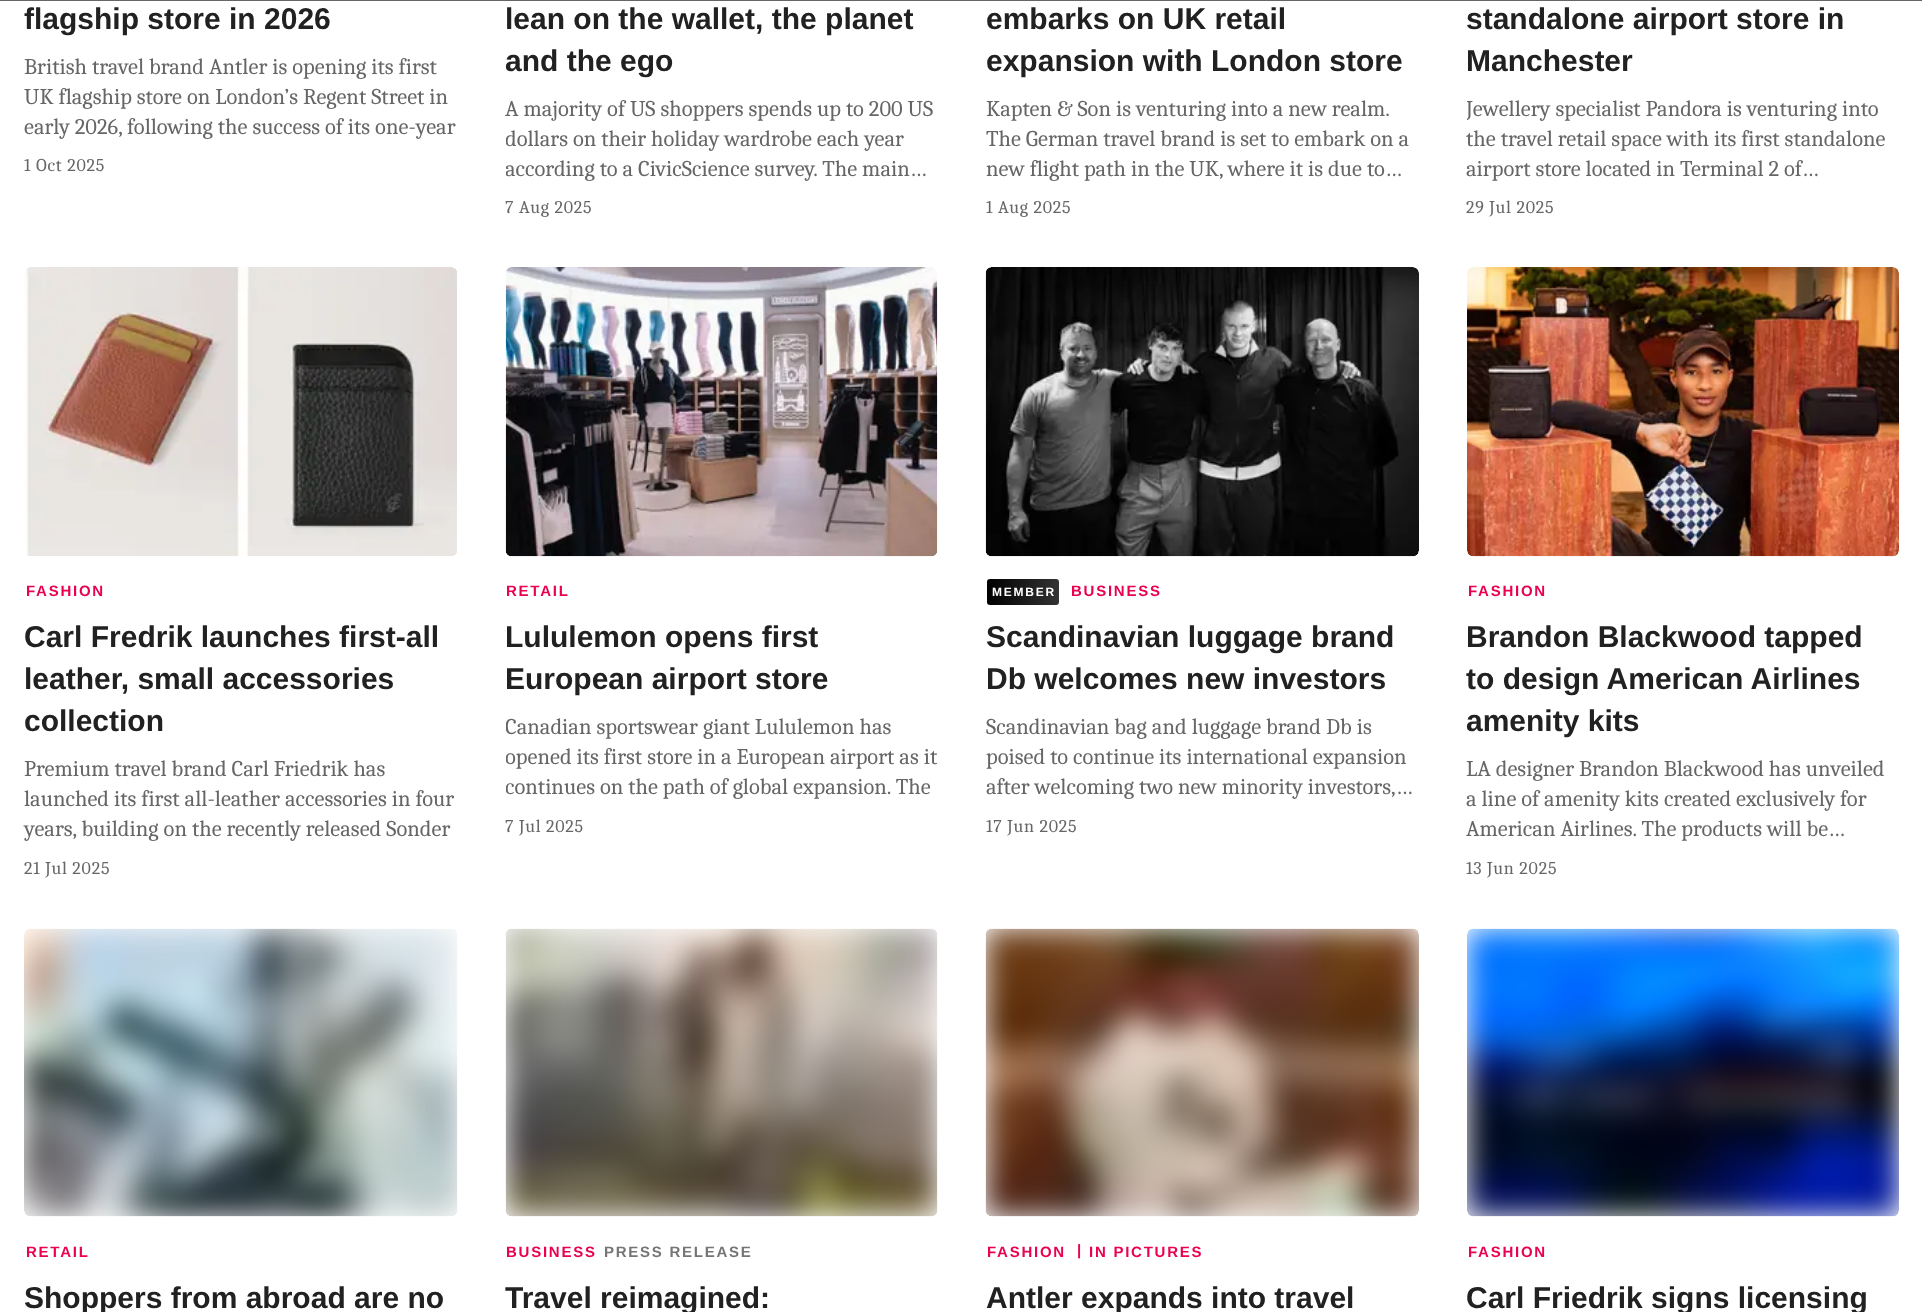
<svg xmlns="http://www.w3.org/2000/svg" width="1922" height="1312">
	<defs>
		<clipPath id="clip1"><rect x="506" y="93" width="432" height="90" /></clipPath>
		<clipPath id="clip2"><rect x="1467" y="93" width="432" height="90" /></clipPath>
		<clipPath id="clip3"><rect x="506" y="713" width="432" height="90" /></clipPath>
		<linearGradient id="g1" gradientUnits="userSpaceOnUse" x1="987" y1="592" x2="1059" y2="592"><stop offset="0" stop-color="#000000" /><stop offset="1" stop-color="#333333" /></linearGradient>
		<clipPath id="clip4"><rect x="986" y="713" width="433" height="90" /></clipPath>
	</defs>
	<rect width="100%" height="100%" fill="#FFFFFF" />
	<rect x="0" y="0" width="1922" height="1" fill="#666666" />
	<text x="24" y="29" font-family="Liberation Sans" font-size="30" font-weight="700" fill="#212121">flagship store in 2026</text>
	<g font-family="Caladea" font-size="22.5" fill="#666666">
		<text x="24" y="74">British travel brand Antler is opening its first</text>
		<text x="24" y="104">UK flagship store on London’s Regent Street in</text>
		<text x="24" y="134">early 2026, following the success of its one-year</text>
	</g>
	<text x="24" y="171" font-family="Caladea" font-size="18" letter-spacing="0.75" fill="#666666">1 Oct 2025</text>
	<g font-family="Liberation Sans" font-size="30" font-weight="700" fill="#212121">
		<text x="505" y="29">lean on the wallet, the planet</text>
		<text x="505" y="71">and the ego</text>
	</g>
	<text x="505" y="116" font-family="Caladea" font-size="22.5" fill="#666666">A majority of US shoppers spends up to 200 US</text>
	<g clip-path="url(#clip1)">
		<g font-family="Caladea" font-size="22.5" fill="#666666">
			<text x="505" y="146">dollars on their holiday wardrobe each year</text>
			<text x="505" y="176">according to a CivicScience survey. The main…</text>
		</g>
	</g>
	<text x="505" y="213" font-family="Caladea" font-size="18" letter-spacing="0.75" fill="#666666">7 Aug 2025</text>
	<g font-family="Liberation Sans" font-size="30" font-weight="700" fill="#212121">
		<text x="986" y="29">embarks on UK retail</text>
		<text x="986" y="71">expansion with London store</text>
	</g>
	<g font-family="Caladea" font-size="22.5" fill="#666666">
		<text x="986" y="116">Kapten &amp; Son is venturing into a new realm.</text>
		<text x="986" y="146">The German travel brand is set to embark on a</text>
		<text x="986" y="176">new flight path in the UK, where it is due to…</text>
	</g>
	<text x="986" y="213" font-family="Caladea" font-size="18" letter-spacing="0.75" fill="#666666">1 Aug 2025</text>
	<g font-family="Liberation Sans" font-size="30" font-weight="700" fill="#212121">
		<text x="1466" y="29">standalone airport store in</text>
		<text x="1466" y="71">Manchester</text>
	</g>
	<g clip-path="url(#clip2)">
		<text x="1466" y="116" font-family="Caladea" font-size="22.5" fill="#666666">Jewellery specialist Pandora is venturing into</text>
	</g>
	<g font-family="Caladea" font-size="22.5" fill="#666666">
		<text x="1466" y="146">the travel retail space with its first standalone</text>
		<text x="1466" y="176">airport store located in Terminal 2 of…</text>
	</g>
	<text x="1466" y="213" font-family="Caladea" font-size="18" letter-spacing="0.75" fill="#666666">29 Jul 2025</text>
	<image x="24" y="267" width="433" height="289" href="assets/img1.png" />
	<text x="26" y="596" font-family="Liberation Sans" font-size="15" font-weight="700" letter-spacing="1.75" fill="#EA0151">FASHION</text>
	<g font-family="Liberation Sans" font-size="30" font-weight="700" fill="#212121">
		<text x="24" y="647">Carl Fredrik launches first-all</text>
		<text x="24" y="689">leather, small accessories</text>
		<text x="24" y="731">collection</text>
	</g>
	<g font-family="Caladea" font-size="22.5" fill="#666666">
		<text x="24" y="776">Premium travel brand Carl Friedrik has</text>
		<text x="24" y="806">launched its first all-leather accessories in four</text>
		<text x="24" y="836">years, building on the recently released Sonder</text>
	</g>
	<text x="24" y="874" font-family="Caladea" font-size="18" letter-spacing="0.75" fill="#666666">21 Jul 2025</text>
	<image x="505" y="267" width="433" height="290" href="assets/img2.png" />
	<text x="506" y="596" font-family="Liberation Sans" font-size="15" font-weight="700" letter-spacing="1.75" fill="#EA0151">RETAIL</text>
	<g font-family="Liberation Sans" font-size="30" font-weight="700" fill="#212121">
		<text x="505" y="647">Lululemon opens first</text>
		<text x="505" y="689">European airport store</text>
	</g>
	<g clip-path="url(#clip3)">
		<g font-family="Caladea" font-size="22.5" fill="#666666">
			<text x="505" y="734">Canadian sportswear giant Lululemon has</text>
			<text x="505" y="764">opened its first store in a European airport as it</text>
			<text x="505" y="794">continues on the path of global expansion. The</text>
		</g>
	</g>
	<text x="505" y="832" font-family="Caladea" font-size="18" letter-spacing="0.75" fill="#666666">7 Jul 2025</text>
	<image x="985" y="267" width="434" height="290" href="assets/img3.png" />
	<rect x="987" y="579" width="72" height="26" rx="3" fill="url(#g1)" />
	<text x="992" y="596" font-family="Liberation Sans" font-size="12" font-weight="700" letter-spacing="1.75" fill="#FFFFFF">MEMBER</text>
	<text x="1071" y="596" font-family="Liberation Sans" font-size="15" font-weight="700" letter-spacing="1.75" fill="#EA0151">BUSINESS</text>
	<g font-family="Liberation Sans" font-size="30" font-weight="700" fill="#212121">
		<text x="986" y="647">Scandinavian luggage brand</text>
		<text x="986" y="689">Db welcomes new investors</text>
	</g>
	<g clip-path="url(#clip4)">
		<text x="986" y="734" font-family="Caladea" font-size="22.5" fill="#666666">Scandinavian bag and luggage brand Db is</text>
	</g>
	<g font-family="Caladea" font-size="22.5" fill="#666666">
		<text x="986" y="764">poised to continue its international expansion</text>
		<text x="986" y="794">after welcoming two new minority investors,…</text>
	</g>
	<text x="986" y="832" font-family="Caladea" font-size="18" letter-spacing="0.75" fill="#666666">17 Jun 2025</text>
	<image x="1467" y="267" width="432" height="290" href="assets/img4.png" />
	<text x="1468" y="596" font-family="Liberation Sans" font-size="15" font-weight="700" letter-spacing="1.75" fill="#EA0151">FASHION</text>
	<g font-family="Liberation Sans" font-size="30" font-weight="700" fill="#212121">
		<text x="1466" y="647">Brandon Blackwood tapped</text>
		<text x="1466" y="689">to design American Airlines</text>
		<text x="1466" y="731">amenity kits</text>
	</g>
	<g font-family="Caladea" font-size="22.5" fill="#666666">
		<text x="1466" y="776">LA designer Brandon Blackwood has unveiled</text>
		<text x="1466" y="806">a line of amenity kits created exclusively for</text>
		<text x="1466" y="836">American Airlines. The products will be…</text>
	</g>
	<text x="1466" y="874" font-family="Caladea" font-size="18" letter-spacing="0.75" fill="#666666">13 Jun 2025</text>
	<image x="24" y="928" width="434" height="289" href="assets/img5.png" />
	<text x="26" y="1257" font-family="Liberation Sans" font-size="15" font-weight="700" letter-spacing="1.75" fill="#EA0151">RETAIL</text>
	<text x="24" y="1308" font-family="Liberation Sans" font-size="30" font-weight="700" fill="#212121">Shoppers from abroad are no</text>
	<image x="505" y="928" width="433" height="289" href="assets/img6.png" />
	<text x="506" y="1257" font-family="Liberation Sans" font-size="15" font-weight="700" letter-spacing="1.75" fill="#EA0151">BUSINESS</text>
	<text x="604" y="1257" font-family="Liberation Sans" font-size="15" font-weight="700" letter-spacing="1.75" fill="#757575">PRESS RELEASE</text>
	<text x="505" y="1308" font-family="Liberation Sans" font-size="30" font-weight="700" fill="#212121">Travel reimagined:</text>
	<image x="985" y="928" width="434" height="289" href="assets/img7.png" />
	<g font-family="Liberation Sans" font-size="15" font-weight="700" letter-spacing="1.75" fill="#EA0151">
		<text x="987" y="1257">FASHION</text>
		<text x="1077" y="1255">|</text>
		<text x="1089" y="1257">IN PICTURES</text>
	</g>
	<text x="986" y="1308" font-family="Liberation Sans" font-size="30" font-weight="700" fill="#212121">Antler expands into travel</text>
	<image x="1467" y="928" width="432" height="289" href="assets/img8.png" />
	<text x="1468" y="1257" font-family="Liberation Sans" font-size="15" font-weight="700" letter-spacing="1.75" fill="#EA0151">FASHION</text>
	<text x="1466" y="1308" font-family="Liberation Sans" font-size="30" font-weight="700" fill="#212121">Carl Friedrik signs licensing</text>
</svg>
